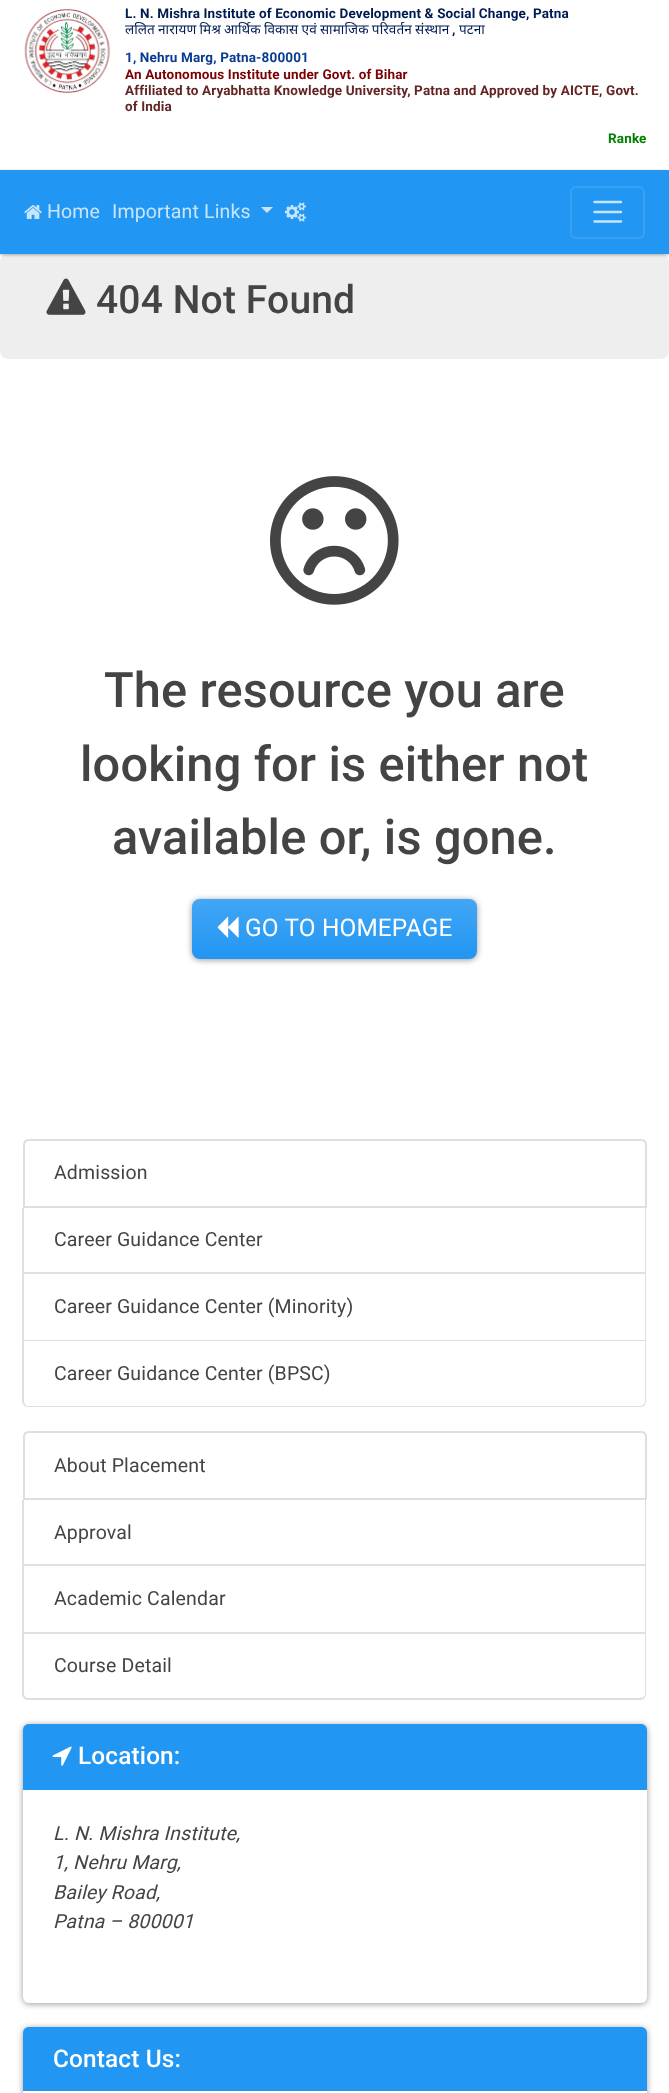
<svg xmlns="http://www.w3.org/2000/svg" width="669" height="2093">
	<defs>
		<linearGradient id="g1" gradientUnits="userSpaceOnUse" x1="335" y1="899" x2="335" y2="959"><stop offset="0" stop-color="#42A6F5" /><stop offset="1" stop-color="#2196F3" /></linearGradient>
	</defs>
	<rect width="100%" height="100%" fill="#FFFFFF" />
	<image x="24" y="9" width="86" height="85" href="assets/img1.png" />
	<text x="125" y="18" font-family="Roboto" font-size="13.5" font-weight="700" letter-spacing="0.15" fill="#001B52">L. N. Mishra Institute of Economic Development &amp; Social Change, Patna</text>
	<g font-family="Noto Sans" font-size="13.5" letter-spacing="0.15" fill="#001B52">
		<text x="125" y="34" word-spacing="-0.5">ललित नारायण मिश्र आर्थिक विकास एवं सामाजिक परिवर्तन संस्थान</text>
		<text x="459" y="34">पटना</text>
	</g>
	<text x="452" y="34" font-family="Roboto" font-size="13.5" font-weight="700" letter-spacing="0.15" fill="#001B52">,</text>
	<text x="125" y="62" font-family="Roboto" font-size="13.5" font-weight="700" letter-spacing="0.15" fill="#073C91">1, Nehru Marg, Patna-800001</text>
	<text x="125" y="79" font-family="Roboto" font-size="13.5" font-weight="700" letter-spacing="0.15" fill="#7B0102">An Autonomous Institute under Govt. of Bihar</text>
	<g font-family="Roboto" font-size="13.5" font-weight="700" letter-spacing="0.15" fill="#632423">
		<text x="125" y="95">Affiliated to Aryabhatta Knowledge University, Patna and Approved by AICTE, Govt.</text>
		<text x="125" y="111">of India</text>
	</g>
	<text x="608" y="143" font-family="Roboto" font-size="13.5" font-weight="700" letter-spacing="0.15" fill="#008000">Ranke</text>
	<rect x="0" y="254" width="669" height="105" rx="8" fill="#EEEEEE" />
	<rect x="0" y="171" width="669" height="84" fill="#000000" fill-opacity="0.3" filter="blur(1.5px)" />
	<rect x="0" y="170" width="669" height="84" fill="#2196F3" />
	<image x="24" y="205" width="18" height="14" href="assets/img2.png" />
	<g font-family="Roboto" font-size="19.5" letter-spacing="0.15" fill="#C8E5FC">
		<text x="47" y="218">Home</text>
		<text x="112" y="218">Important Links</text>
	</g>
	<path d="M261 207H273L267 213Z" fill="#C8E5FC" />
	<image x="285" y="202" width="21" height="20" href="assets/img3.png" />
	<rect x="571" y="187" width="73" height="51" rx="5" fill="none" stroke="#37A1F4" stroke-width="2" />
	<path d="M594.5 202H621M594.5 212H621M594.5 221.5H621" fill="none" stroke="#C8E5FC" stroke-width="2.4" stroke-linecap="round" />
	<image x="46" y="278" width="40" height="37" href="assets/img4.png" />
	<text x="96" y="313" font-family="Roboto" font-size="39" font-weight="500" letter-spacing="0.15" fill="#444444">404 Not Found</text>
	<image x="270" y="476" width="129" height="129" href="assets/img5.png" />
	<g font-family="Roboto" font-size="48.75" font-weight="500" letter-spacing="0.15" fill="#444444">
		<text x="104" y="707">The resource you are</text>
		<text x="80" y="781">looking for is either not</text>
		<text x="112" y="854">available or, is gone.</text>
	</g>
	<rect x="192" y="900" width="285" height="60" rx="8" fill="#000000" fill-opacity="0.4" filter="blur(3px)" />
	<rect x="192" y="899" width="285" height="60" rx="8" fill="url(#g1)" />
	<image x="217" y="916" width="22" height="22" href="assets/img6.png" />
	<text x="245" y="936" font-family="Roboto" font-size="24.4" letter-spacing="0.15" fill="#FFFFFF">GO TO HOMEPAGE</text>
	<path d="M29 1140H641C644 1140 646 1142 646 1145V1207H24V1145C24 1142 26 1140 29 1140Z" fill="none" stroke="#DFDFDF" stroke-width="2" />
	<text x="54" y="1179" font-family="Roboto" font-size="19.5" letter-spacing="0.15" fill="#444444">Admission</text>
	<path d="M646 1208V1274L645 1272V1208Z" fill="#DFDFDF" />
	<path d="M646 1274H22L24 1272H645Z" fill="#000000" fill-opacity="0.12" />
	<path d="M22 1274V1208H24V1272Z" fill="#000000" fill-opacity="0.12" />
	<text x="54" y="1246" font-family="Roboto" font-size="19.5" letter-spacing="0.15" fill="#444444">Career Guidance Center</text>
	<path d="M646 1274V1341L645 1340V1274Z" fill="#DFDFDF" />
	<path d="M646 1341H22L24 1340H645Z" fill="#000000" fill-opacity="0.12" />
	<path d="M22 1341V1274H24V1340Z" fill="#000000" fill-opacity="0.12" />
	<text x="54" y="1313" font-family="Roboto" font-size="19.5" letter-spacing="0.15" fill="#444444">Career Guidance Center (Minority)</text>
	<path d="M22 1341H646V1401C646 1404 644 1407 640 1407H28C25 1407 22 1404 22 1401ZM24 1341H645V1401C645 1403 643 1406 640 1406H28C26 1406 24 1403 24 1401Z" fill="#DFDFDF" fill-rule="evenodd" />
	<text x="54" y="1380" font-family="Roboto" font-size="19.5" letter-spacing="0.15" fill="#444444">Career Guidance Center (BPSC)</text>
	<path d="M29 1432H641C644 1432 646 1434 646 1437V1499H24V1437C24 1434 26 1432 29 1432Z" fill="none" stroke="#DFDFDF" stroke-width="2" />
	<text x="54" y="1472" font-family="Roboto" font-size="19.5" letter-spacing="0.15" fill="#444444">About Placement</text>
	<path d="M646 1500V1566L645 1564V1500Z" fill="#DFDFDF" />
	<path d="M646 1566H22L24 1564H645Z" fill="#000000" fill-opacity="0.12" />
	<path d="M22 1566V1500H24V1564Z" fill="#000000" fill-opacity="0.12" />
	<text x="54" y="1539" font-family="Roboto" font-size="19.5" letter-spacing="0.15" fill="#444444">Approval</text>
	<path d="M646 1566V1634L645 1632V1566Z" fill="#DFDFDF" />
	<path d="M646 1634H22L24 1632H645Z" fill="#000000" fill-opacity="0.12" />
	<path d="M22 1634V1566H24V1632Z" fill="#000000" fill-opacity="0.12" />
	<text x="54" y="1605" font-family="Roboto" font-size="19.5" letter-spacing="0.15" fill="#444444">Academic Calendar</text>
	<path d="M22 1634H646V1694C646 1697 644 1700 640 1700H28C25 1700 22 1697 22 1694ZM24 1634H645V1694C645 1696 643 1698 640 1698H28C26 1698 24 1696 24 1694Z" fill="#DFDFDF" fill-rule="evenodd" />
	<text x="54" y="1672" font-family="Roboto" font-size="19.5" letter-spacing="0.15" fill="#444444">Course Detail</text>
	<rect x="23" y="1725" width="624" height="279" rx="6" fill="#000000" fill-opacity="0.4" filter="blur(3px)" />
	<rect x="23" y="1724" width="624" height="279" rx="6" fill="#FFFFFF" />
	<path d="M29 1724H641C644.5 1724 647 1726.5 647 1730V1790H23V1730C23 1726.5 25.5 1724 29 1724Z" fill="#2196F3" />
	<image x="52" y="1746" width="20" height="20" href="assets/img7.png" />
	<text x="78" y="1764" font-family="Roboto" font-size="24.4" font-weight="500" letter-spacing="0.15" fill="#FFFFFF">Location:</text>
	<g font-family="Roboto" font-size="19.5" font-style="italic" letter-spacing="0.15" fill="#444444">
		<text x="53" y="1840">L. N. Mishra Institute,</text>
		<text x="53" y="1869">1, Nehru Marg,</text>
		<text x="53" y="1899">Bailey Road,</text>
		<text x="53" y="1928">Patna – 800001</text>
	</g>
	<rect x="23" y="2028" width="624" height="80" rx="6" fill="#000000" fill-opacity="0.4" filter="blur(3px)" />
	<rect x="23" y="2027" width="624" height="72" rx="6" fill="#FFFFFF" />
	<path d="M29 2027H641C644.5 2027 647 2029.5 647 2033V2091H23V2033C23 2029.5 25.5 2027 29 2027Z" fill="#2196F3" />
	<text x="53" y="2067" font-family="Roboto" font-size="24.4" font-weight="500" letter-spacing="0.15" fill="#FFFFFF">Contact Us:</text>
</svg>
